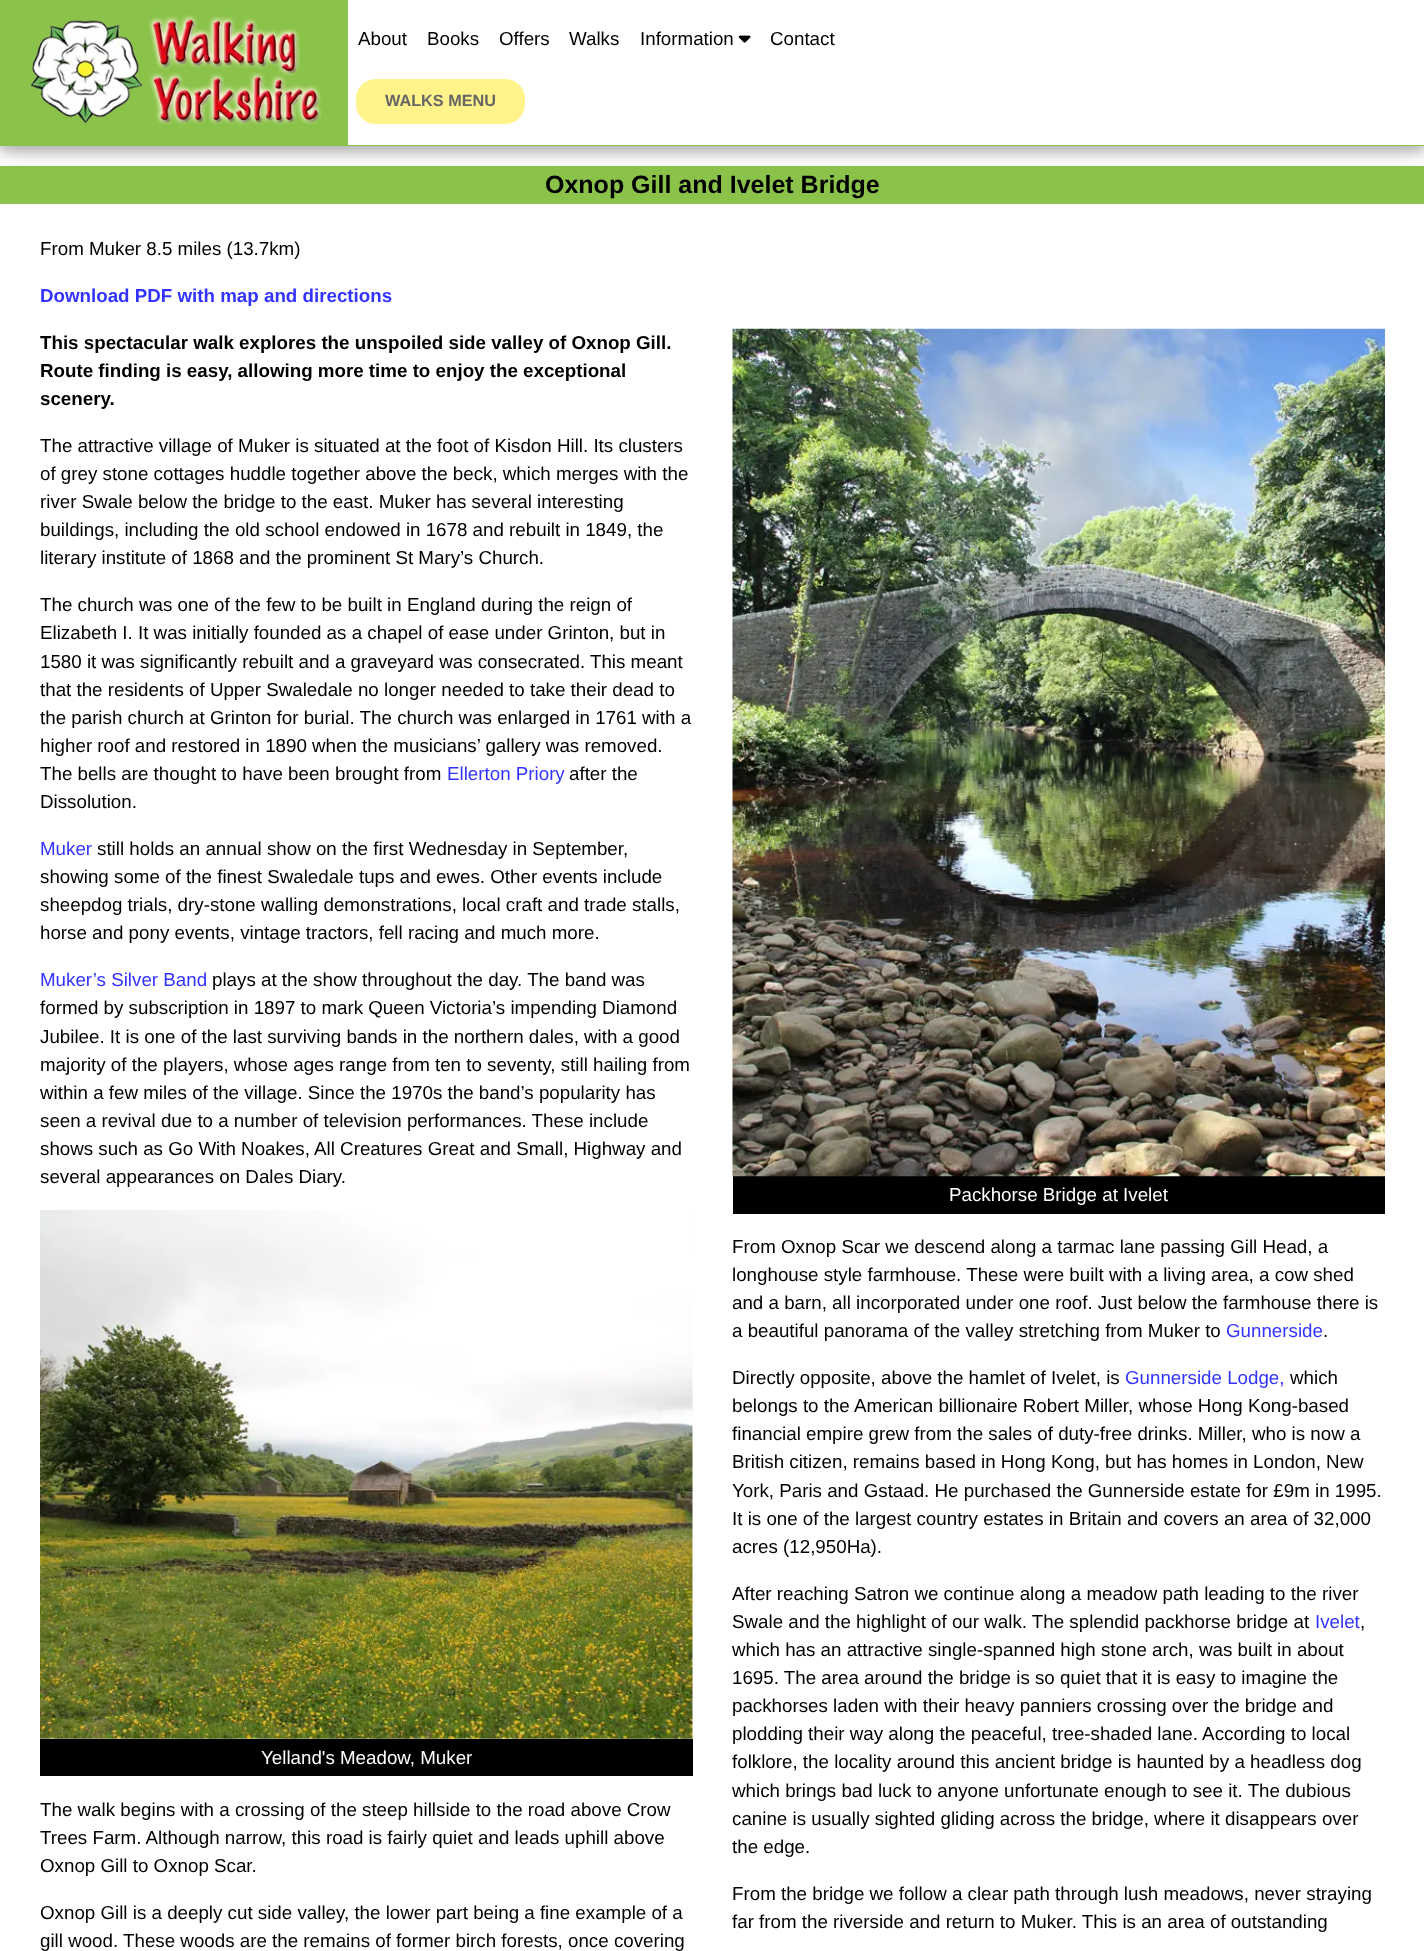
<svg xmlns="http://www.w3.org/2000/svg" width="1424" height="1951">
	<defs>
		<clipPath id="clip1"><rect x="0" y="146" width="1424" height="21" /></clipPath>
		<clipPath id="clip2"><rect x="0" y="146" width="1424" height="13" /></clipPath>
	</defs>
	<rect width="100%" height="100%" fill="#FFFFFF" />
	<rect x="0" y="166" width="1424" height="38" fill="#8BC34A" />
	<g clip-path="url(#clip1)">
		<rect x="0" y="5" width="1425" height="146" fill="#000000" fill-opacity="0.19" filter="blur(12.5px)" />
	</g>
	<g clip-path="url(#clip2)">
		<rect x="0" y="5" width="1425" height="146" fill="#000000" fill-opacity="0.2" filter="blur(6px)" />
	</g>
	<rect x="0" y="145" width="1424" height="1" fill="#8BC34A" />
	<rect x="0" y="0" width="348" height="145" fill="#8BC34A" />
	<image x="30" y="14" width="292" height="111" href="assets/img1.png" />
	<g font-family="Liberation Sans" font-size="18.75" fill="#000000">
		<text x="358" y="45">About</text>
		<text x="427" y="45">Books</text>
		<text x="499" y="45">Offers</text>
		<text x="569" y="45">Walks</text>
		<text x="640" y="45">Information</text>
	</g>
	<image x="738" y="35" width="13" height="8" href="assets/img2.png" />
	<text x="770" y="45" font-family="Liberation Sans" font-size="18.75" fill="#000000">Contact</text>
	<rect x="356" y="79" width="169" height="45" rx="20" fill="#FFF389" />
	<text x="385" y="106" font-family="Liberation Sans" font-size="16.25" font-weight="700" fill="#666666">WALKS MENU</text>
	<text x="545" y="193" font-family="Liberation Sans" font-size="25" font-weight="700" fill="#000000">Oxnop Gill and Ivelet Bridge</text>
	<text x="40" y="255" font-family="Liberation Sans" font-size="18.75" fill="#000000">From Muker 8.5 miles (13.7km)</text>
	<text x="40" y="302" font-family="Liberation Sans" font-size="18.75" font-weight="700" fill="#3333FF">Download PDF with map and directions</text>
	<g font-family="Liberation Sans" font-size="18.75" font-weight="700" fill="#000000">
		<text x="40" y="349">This spectacular walk explores the unspoiled side valley of Oxnop Gill.</text>
		<text x="40" y="377">Route finding is easy, allowing more time to enjoy the exceptional</text>
		<text x="40" y="405">scenery.</text>
	</g>
	<g font-family="Liberation Sans" font-size="18.75" fill="#000000">
		<text x="40" y="452">The attractive village of Muker is situated at the foot of Kisdon Hill. Its clusters</text>
		<text x="40" y="480">of grey stone cottages huddle together above the beck, which merges with the</text>
		<text x="40" y="508">river Swale below the bridge to the east. Muker has several interesting</text>
		<text x="40" y="536">buildings, including the old school endowed in 1678 and rebuilt in 1849, the</text>
		<text x="40" y="564">literary institute of 1868 and the prominent St Mary’s Church.</text>
		<text x="40" y="611">The church was one of the few to be built in England during the reign of</text>
		<text x="40" y="639">Elizabeth I. It was initially founded as a chapel of ease under Grinton, but in</text>
		<text x="40" y="668">1580 it was significantly rebuilt and a graveyard was consecrated. This meant</text>
		<text x="40" y="696">that the residents of Upper Swaledale no longer needed to take their dead to</text>
		<text x="40" y="724">the parish church at Grinton for burial. The church was enlarged in 1761 with a</text>
		<text x="40" y="752">higher roof and restored in 1890 when the musicians’ gallery was removed.</text>
		<text x="40" y="780">The bells are thought to have been brought from</text>
	</g>
	<text x="447" y="780" font-family="Liberation Sans" font-size="18.75" fill="#3333FF">Ellerton Priory</text>
	<g font-family="Liberation Sans" font-size="18.75" fill="#000000">
		<text x="569" y="780">after the</text>
		<text x="40" y="808">Dissolution.</text>
	</g>
	<text x="40" y="855" font-family="Liberation Sans" font-size="18.75" fill="#3333FF">Muker</text>
	<g font-family="Liberation Sans" font-size="18.75" fill="#000000">
		<text x="97" y="855">still holds an annual show on the first Wednesday in September,</text>
		<text x="40" y="883">showing some of the finest Swaledale tups and ewes. Other events include</text>
		<text x="40" y="911">sheepdog trials, dry-stone walling demonstrations, local craft and trade stalls,</text>
		<text x="40" y="939">horse and pony events, vintage tractors, fell racing and much more.</text>
	</g>
	<text x="40" y="986" font-family="Liberation Sans" font-size="18.75" fill="#3333FF">Muker’s Silver Band</text>
	<g font-family="Liberation Sans" font-size="18.75" fill="#000000">
		<text x="212" y="986">plays at the show throughout the day. The band was</text>
		<text x="40" y="1014">formed by subscription in 1897 to mark Queen Victoria’s impending Diamond</text>
		<text x="40" y="1043">Jubilee. It is one of the last surviving bands in the northern dales, with a good</text>
		<text x="40" y="1071">majority of the players, whose ages range from ten to seventy, still hailing from</text>
		<text x="40" y="1099">within a few miles of the village. Since the 1970s the band’s popularity has</text>
		<text x="40" y="1127">seen a revival due to a number of television performances. These include</text>
		<text x="40" y="1155">shows such as Go With Noakes, All Creatures Great and Small, Highway and</text>
		<text x="40" y="1183">several appearances on Dales Diary.</text>
	</g>
	<image x="40" y="1210" width="653" height="529" href="assets/img3.png" />
	<rect x="40" y="1739" width="653" height="37" fill="#000000" />
	<text x="261" y="1764" font-family="Liberation Sans" font-size="18.75" fill="#FFFFFF">Yelland's Meadow, Muker</text>
	<g font-family="Liberation Sans" font-size="18.75" fill="#000000">
		<text x="40" y="1816">The walk begins with a crossing of the steep hillside to the road above Crow</text>
		<text x="40" y="1844">Trees Farm. Although narrow, this road is fairly quiet and leads uphill above</text>
		<text x="40" y="1872">Oxnop Gill to Oxnop Scar.</text>
		<text x="40" y="1919">Oxnop Gill is a deeply cut side valley, the lower part being a fine example of a</text>
		<text x="40" y="1947">gill wood. These woods are the remains of former birch forests, once covering</text>
	</g>
	<rect x="733" y="1176" width="652" height="38" fill="#000000" />
	<image x="732" y="328" width="653" height="849" href="assets/img4.png" />
	<text x="949" y="1201" font-family="Liberation Sans" font-size="18.75" fill="#FFFFFF">Packhorse Bridge at Ivelet</text>
	<g font-family="Liberation Sans" font-size="18.75" fill="#000000">
		<text x="732" y="1253">From Oxnop Scar we descend along a tarmac lane passing Gill Head, a</text>
		<text x="732" y="1281">longhouse style farmhouse. These were built with a living area, a cow shed</text>
		<text x="732" y="1309">and a barn, all incorporated under one roof. Just below the farmhouse there is</text>
		<text x="732" y="1337">a beautiful panorama of the valley stretching from Muker to</text>
	</g>
	<text x="1226" y="1337" font-family="Liberation Sans" font-size="18.75" fill="#3333FF">Gunnerside</text>
	<g font-family="Liberation Sans" font-size="18.75" fill="#000000">
		<text x="1323" y="1337">.</text>
		<text x="732" y="1384">Directly opposite, above the hamlet of Ivelet, is</text>
	</g>
	<text x="1125" y="1384" font-family="Liberation Sans" font-size="18.75" fill="#3333FF">Gunnerside Lodge,</text>
	<g font-family="Liberation Sans" font-size="18.75" fill="#000000">
		<text x="1290" y="1384">which</text>
		<text x="732" y="1412">belongs to the American billionaire Robert Miller, whose Hong Kong-based</text>
		<text x="732" y="1440">financial empire grew from the sales of duty-free drinks. Miller, who is now a</text>
		<text x="732" y="1468">British citizen, remains based in Hong Kong, but has homes in London, New</text>
		<text x="732" y="1497">York, Paris and Gstaad. He purchased the Gunnerside estate for £9m in 1995.</text>
		<text x="732" y="1525">It is one of the largest country estates in Britain and covers an area of 32,000</text>
		<text x="732" y="1553">acres (12,950Ha).</text>
		<text x="732" y="1600">After reaching Satron we continue along a meadow path leading to the river</text>
		<text x="732" y="1628">Swale and the highlight of our walk. The splendid packhorse bridge at</text>
	</g>
	<text x="1315" y="1628" font-family="Liberation Sans" font-size="18.75" fill="#3333FF">Ivelet</text>
	<g font-family="Liberation Sans" font-size="18.75" fill="#000000">
		<text x="1360" y="1628">,</text>
		<text x="732" y="1656">which has an attractive single-spanned high stone arch, was built in about</text>
		<text x="732" y="1684">1695. The area around the bridge is so quiet that it is easy to imagine the</text>
		<text x="732" y="1712">packhorses laden with their heavy panniers crossing over the bridge and</text>
		<text x="732" y="1740">plodding their way along the peaceful, tree-shaded lane. According to local</text>
		<text x="732" y="1768">folklore, the locality around this ancient bridge is haunted by a headless dog</text>
		<text x="732" y="1797">which brings bad luck to anyone unfortunate enough to see it. The dubious</text>
		<text x="732" y="1825">canine is usually sighted gliding across the bridge, where it disappears over</text>
		<text x="732" y="1853">the edge.</text>
		<text x="732" y="1900">From the bridge we follow a clear path through lush meadows, never straying</text>
		<text x="732" y="1928">far from the riverside and return to Muker. This is an area of outstanding</text>
	</g>
</svg>
